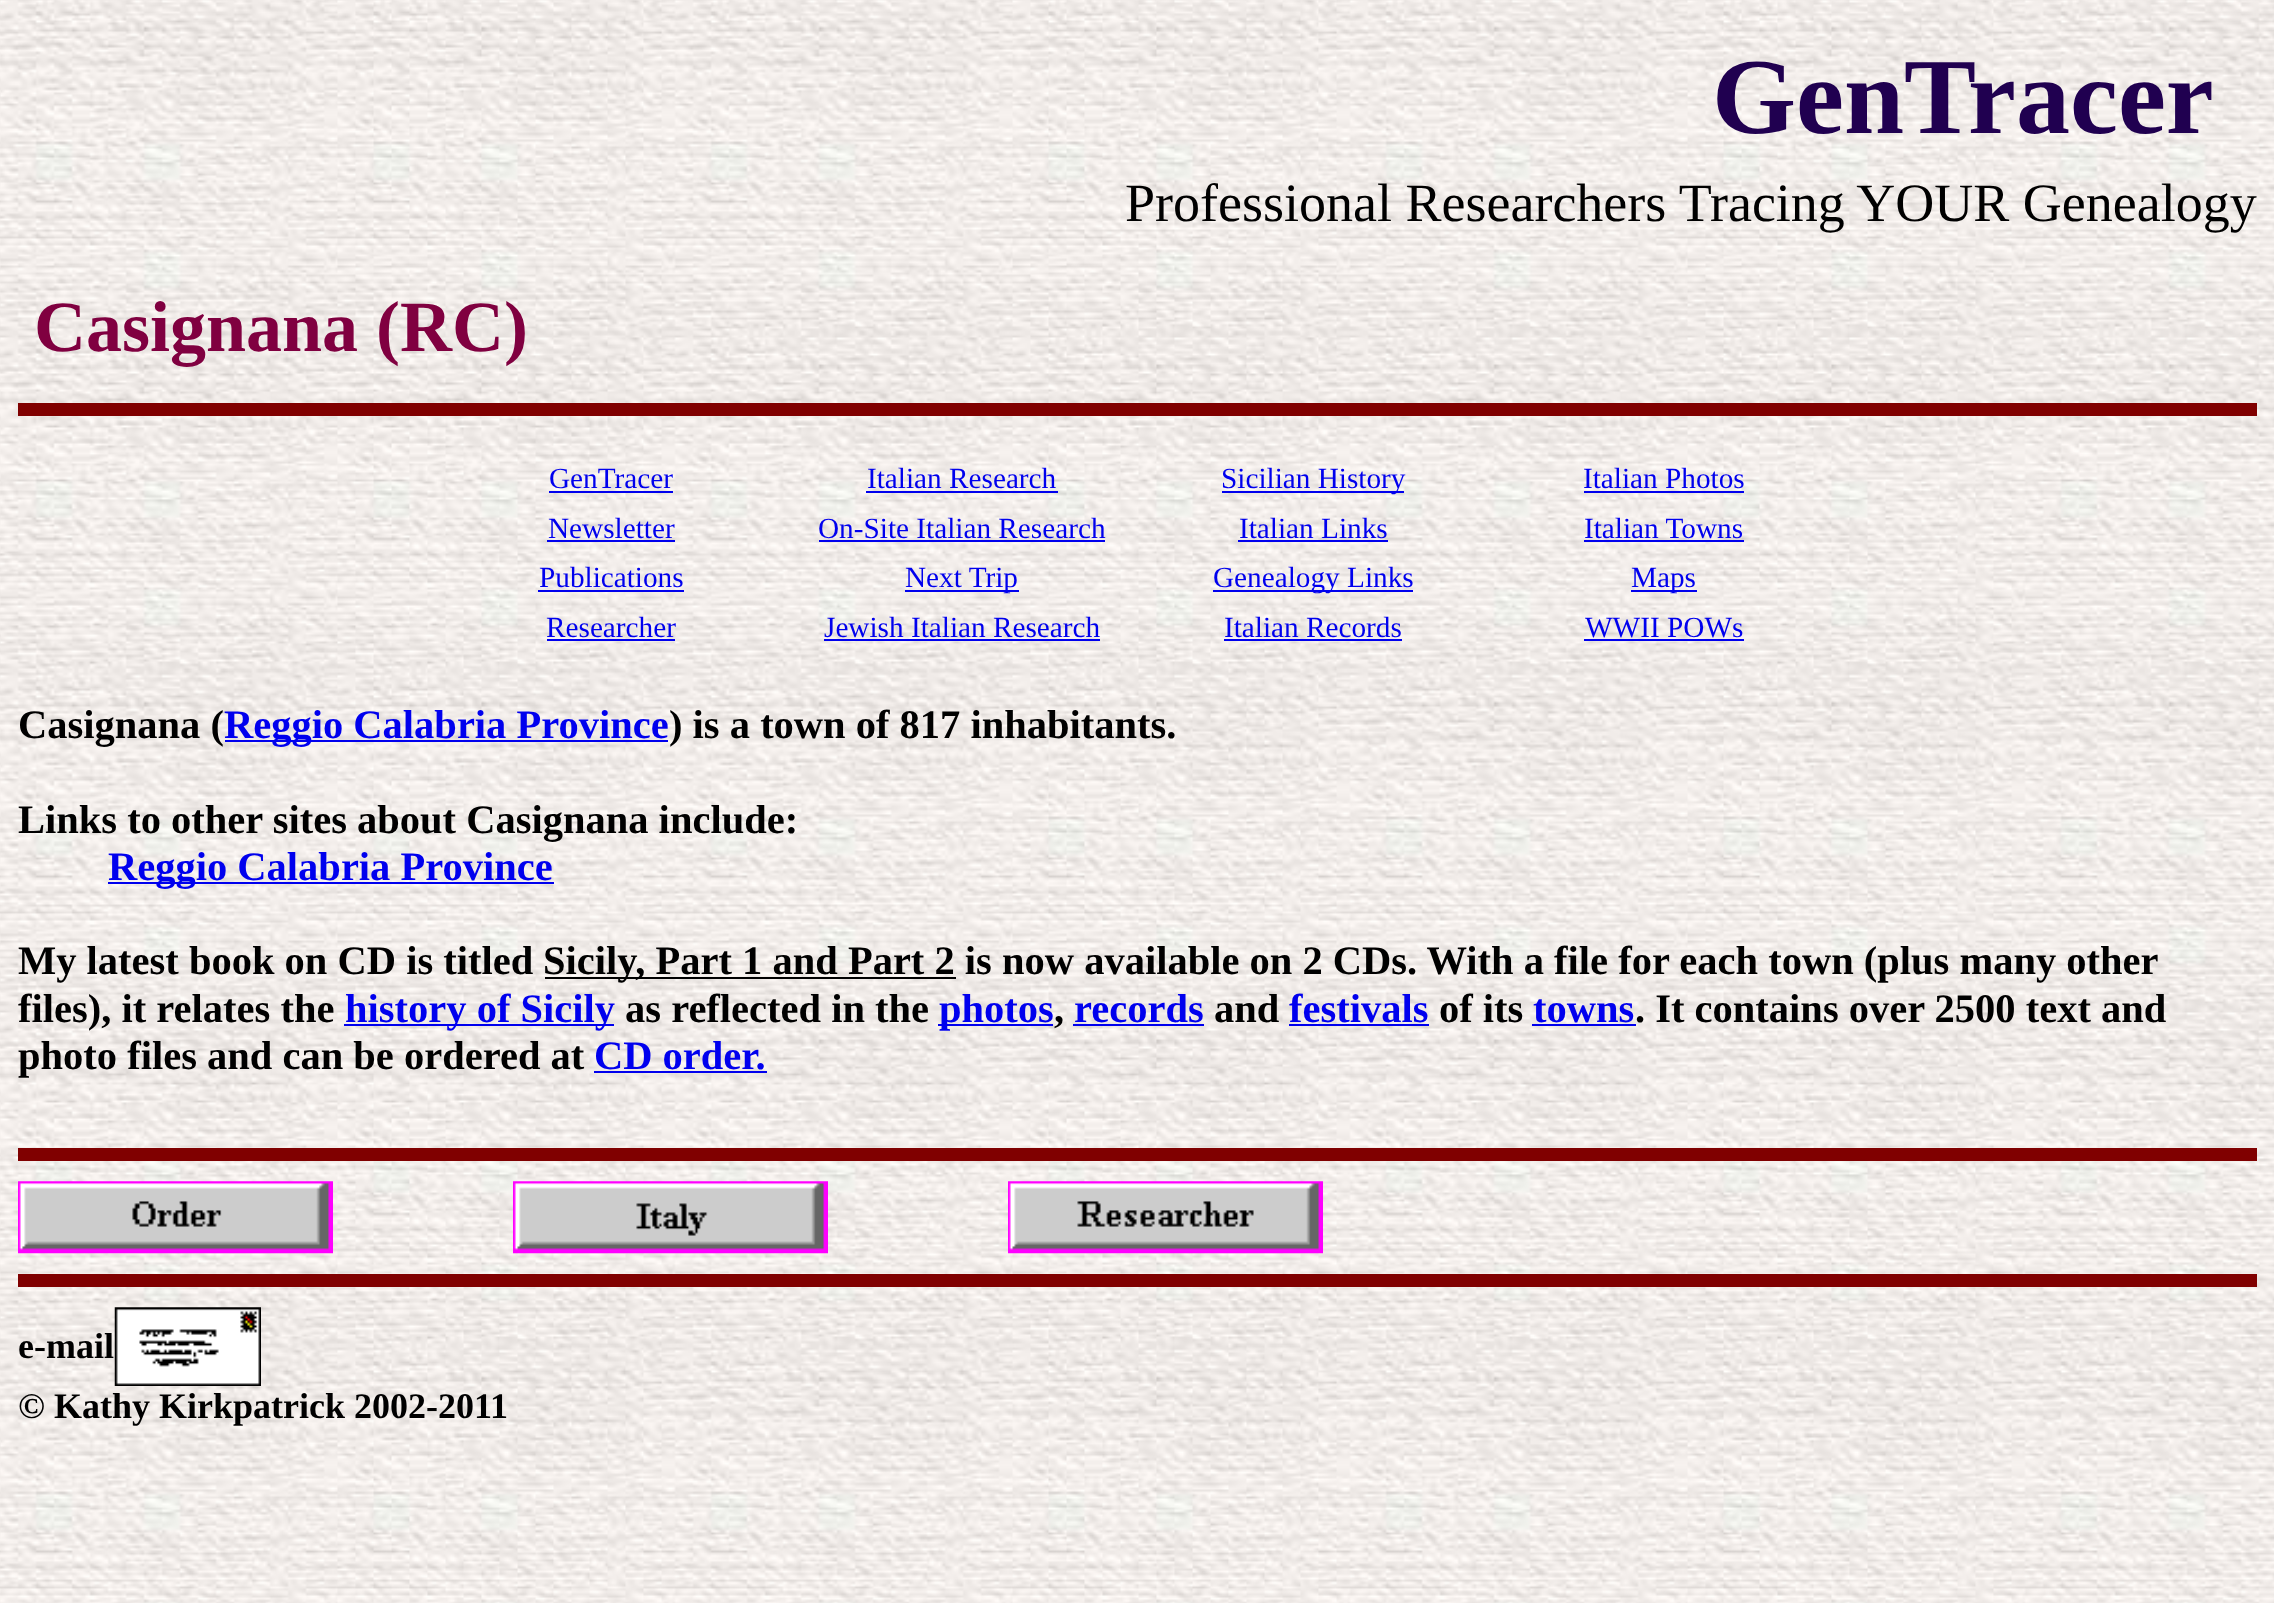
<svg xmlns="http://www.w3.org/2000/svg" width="2274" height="1603">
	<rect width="100%" height="100%" fill="#FFFFFF" />
	<image x="0" y="0" width="2274" height="1603" href="assets/img1.png" />
	<text x="1712" y="133" font-family="Liberation Serif" font-size="108" font-weight="700" fill="#200050">GenTracer</text>
	<text x="1125" y="221" font-family="Liberation Serif" font-size="54" fill="#000000">Professional Researchers Tracing YOUR Genealogy</text>
	<text x="34" y="351" font-family="Liberation Serif" font-size="72" font-weight="700" fill="#800040">Casignana (RC)</text>
	<rect x="18" y="403" width="2239" height="13" fill="#800000" />
	<text x="549" y="488" font-family="Liberation Serif" font-size="29.25" fill="#0000EE">GenTracer</text>
	<rect x="549" y="491" width="124" height="2" fill="#0000EE" />
	<text x="867" y="488" font-family="Liberation Serif" font-size="29.25" fill="#0000EE">Italian Research</text>
	<rect x="866" y="491" width="192" height="2" fill="#0000EE" />
	<rect x="1222" y="491" width="182" height="2" fill="#0000EE" />
	<g font-family="Liberation Serif" font-size="29.25" fill="#0000EE">
		<text x="1221" y="488">Sicilian History</text>
		<text x="1583" y="488">Italian Photos</text>
	</g>
	<rect x="1584" y="491" width="160" height="2" fill="#0000EE" />
	<text x="548" y="538" font-family="Liberation Serif" font-size="29.25" fill="#0000EE">Newsletter</text>
	<rect x="547" y="540" width="128" height="2" fill="#0000EE" />
	<text x="818" y="538" font-family="Liberation Serif" font-size="29.25" fill="#0000EE">On-Site Italian Research</text>
	<rect x="819" y="540" width="286" height="2" fill="#0000EE" />
	<text x="1239" y="538" font-family="Liberation Serif" font-size="29.25" fill="#0000EE">Italian Links</text>
	<rect x="1238" y="540" width="150" height="2" fill="#0000EE" />
	<text x="1584" y="538" font-family="Liberation Serif" font-size="29.25" fill="#0000EE">Italian Towns</text>
	<rect x="1584" y="540" width="160" height="2" fill="#0000EE" />
	<text x="539" y="587" font-family="Liberation Serif" font-size="29.25" fill="#0000EE">Publications</text>
	<rect x="538" y="590" width="146" height="2" fill="#0000EE" />
	<rect x="905" y="590" width="114" height="2" fill="#0000EE" />
	<text x="905" y="587" font-family="Liberation Serif" font-size="29.25" fill="#0000EE">Next Trip</text>
	<rect x="1213" y="590" width="200" height="2" fill="#0000EE" />
	<text x="1213" y="587" font-family="Liberation Serif" font-size="29.25" fill="#0000EE">Genealogy Links</text>
	<rect x="1631" y="590" width="66" height="2" fill="#0000EE" />
	<g font-family="Liberation Serif" font-size="29.25" fill="#0000EE">
		<text x="1631" y="587">Maps</text>
		<text x="546" y="637">Researcher</text>
	</g>
	<rect x="547" y="639" width="128" height="2" fill="#0000EE" />
	<text x="824" y="637" font-family="Liberation Serif" font-size="29.25" fill="#0000EE">Jewish Italian Research</text>
	<rect x="824" y="639" width="276" height="2" fill="#0000EE" />
	<text x="1224" y="637" font-family="Liberation Serif" font-size="29.25" fill="#0000EE">Italian Records</text>
	<rect x="1224" y="639" width="178" height="2" fill="#0000EE" />
	<text x="1585" y="637" font-family="Liberation Serif" font-size="29.25" fill="#0000EE">WWII POWs</text>
	<rect x="1584" y="639" width="160" height="2" fill="#0000EE" />
	<text x="18" y="738" font-family="Liberation Serif" font-size="40.5" font-weight="700" fill="#000000">Casignana (</text>
	<rect x="225" y="740" width="443" height="2" fill="#0000EE" />
	<text x="224" y="738" font-family="Liberation Serif" font-size="40.5" font-weight="700" fill="#0000EE">Reggio Calabria Province</text>
	<g font-family="Liberation Serif" font-size="40.5" font-weight="700" fill="#000000">
		<text x="669" y="738">) is a town of 817 inhabitants.</text>
		<text x="18" y="833">Links to other sites about Casignana include:</text>
	</g>
	<rect x="108" y="882" width="446" height="2" fill="#0000EE" />
	<text x="108" y="880" font-family="Liberation Serif" font-size="40.5" font-weight="700" fill="#0000EE">Reggio Calabria Province</text>
	<text x="18" y="974" font-family="Liberation Serif" font-size="40.5" font-weight="700" fill="#000000">My latest book on CD is titled</text>
	<rect x="545" y="977" width="411" height="2" fill="#000000" />
	<g font-family="Liberation Serif" font-size="40.5" font-weight="700" fill="#000000">
		<text x="543" y="974">Sicily, Part 1 and Part 2 is now available on 2 CDs. With a file for each town (plus many other</text>
		<text x="18" y="1022">files), it relates the</text>
	</g>
	<rect x="344" y="1024" width="270" height="2" fill="#0000EE" />
	<text x="345" y="1022" font-family="Liberation Serif" font-size="40.5" font-weight="700" fill="#0000EE">history of Sicily</text>
	<text x="625" y="1022" font-family="Liberation Serif" font-size="40.5" font-weight="700" fill="#000000">as reflected in the</text>
	<rect x="938" y="1024" width="115" height="2" fill="#0000EE" />
	<text x="939" y="1022" font-family="Liberation Serif" font-size="40.5" font-weight="700" fill="#0000EE">photos</text>
	<text x="1054" y="1022" font-family="Liberation Serif" font-size="40.5" font-weight="700" fill="#000000">,</text>
	<text x="1074" y="1022" font-family="Liberation Serif" font-size="40.5" font-weight="700" fill="#0000EE">records</text>
	<rect x="1073" y="1024" width="131" height="2" fill="#0000EE" />
	<text x="1214" y="1022" font-family="Liberation Serif" font-size="40.5" font-weight="700" fill="#000000">and</text>
	<text x="1289" y="1022" font-family="Liberation Serif" font-size="40.5" font-weight="700" fill="#0000EE">festivals</text>
	<rect x="1289" y="1024" width="140" height="2" fill="#0000EE" />
	<text x="1439" y="1022" font-family="Liberation Serif" font-size="40.5" font-weight="700" fill="#000000">of its</text>
	<text x="1533" y="1022" font-family="Liberation Serif" font-size="40.5" font-weight="700" fill="#0000EE">towns</text>
	<rect x="1532" y="1024" width="104" height="2" fill="#0000EE" />
	<g font-family="Liberation Serif" font-size="40.5" font-weight="700" fill="#000000">
		<text x="1635" y="1022">. It contains over 2500 text and</text>
		<text x="18" y="1069">photo files and can be ordered at</text>
	</g>
	<text x="594" y="1069" font-family="Liberation Serif" font-size="40.5" font-weight="700" fill="#0000EE">CD order.</text>
	<rect x="594" y="1071" width="173" height="2" fill="#0000EE" />
	<rect x="18" y="1148" width="2239" height="13" fill="#800000" />
	<image x="18" y="1181" width="315" height="73" href="assets/img2.png" />
	<image x="513" y="1181" width="315" height="73" href="assets/img3.png" />
	<image x="1008" y="1181" width="315" height="73" href="assets/img4.png" />
	<rect x="18" y="1274" width="2239" height="13" fill="#800000" />
	<text x="18" y="1358" font-family="Liberation Serif" font-size="36" font-weight="700" fill="#000000">e-mail</text>
	<image x="114" y="1307" width="147" height="79" href="assets/img5.png" />
	<text x="18" y="1418" font-family="Liberation Serif" font-size="36" font-weight="700" fill="#000000">© Kathy Kirkpatrick 2002-2011</text>
</svg>
